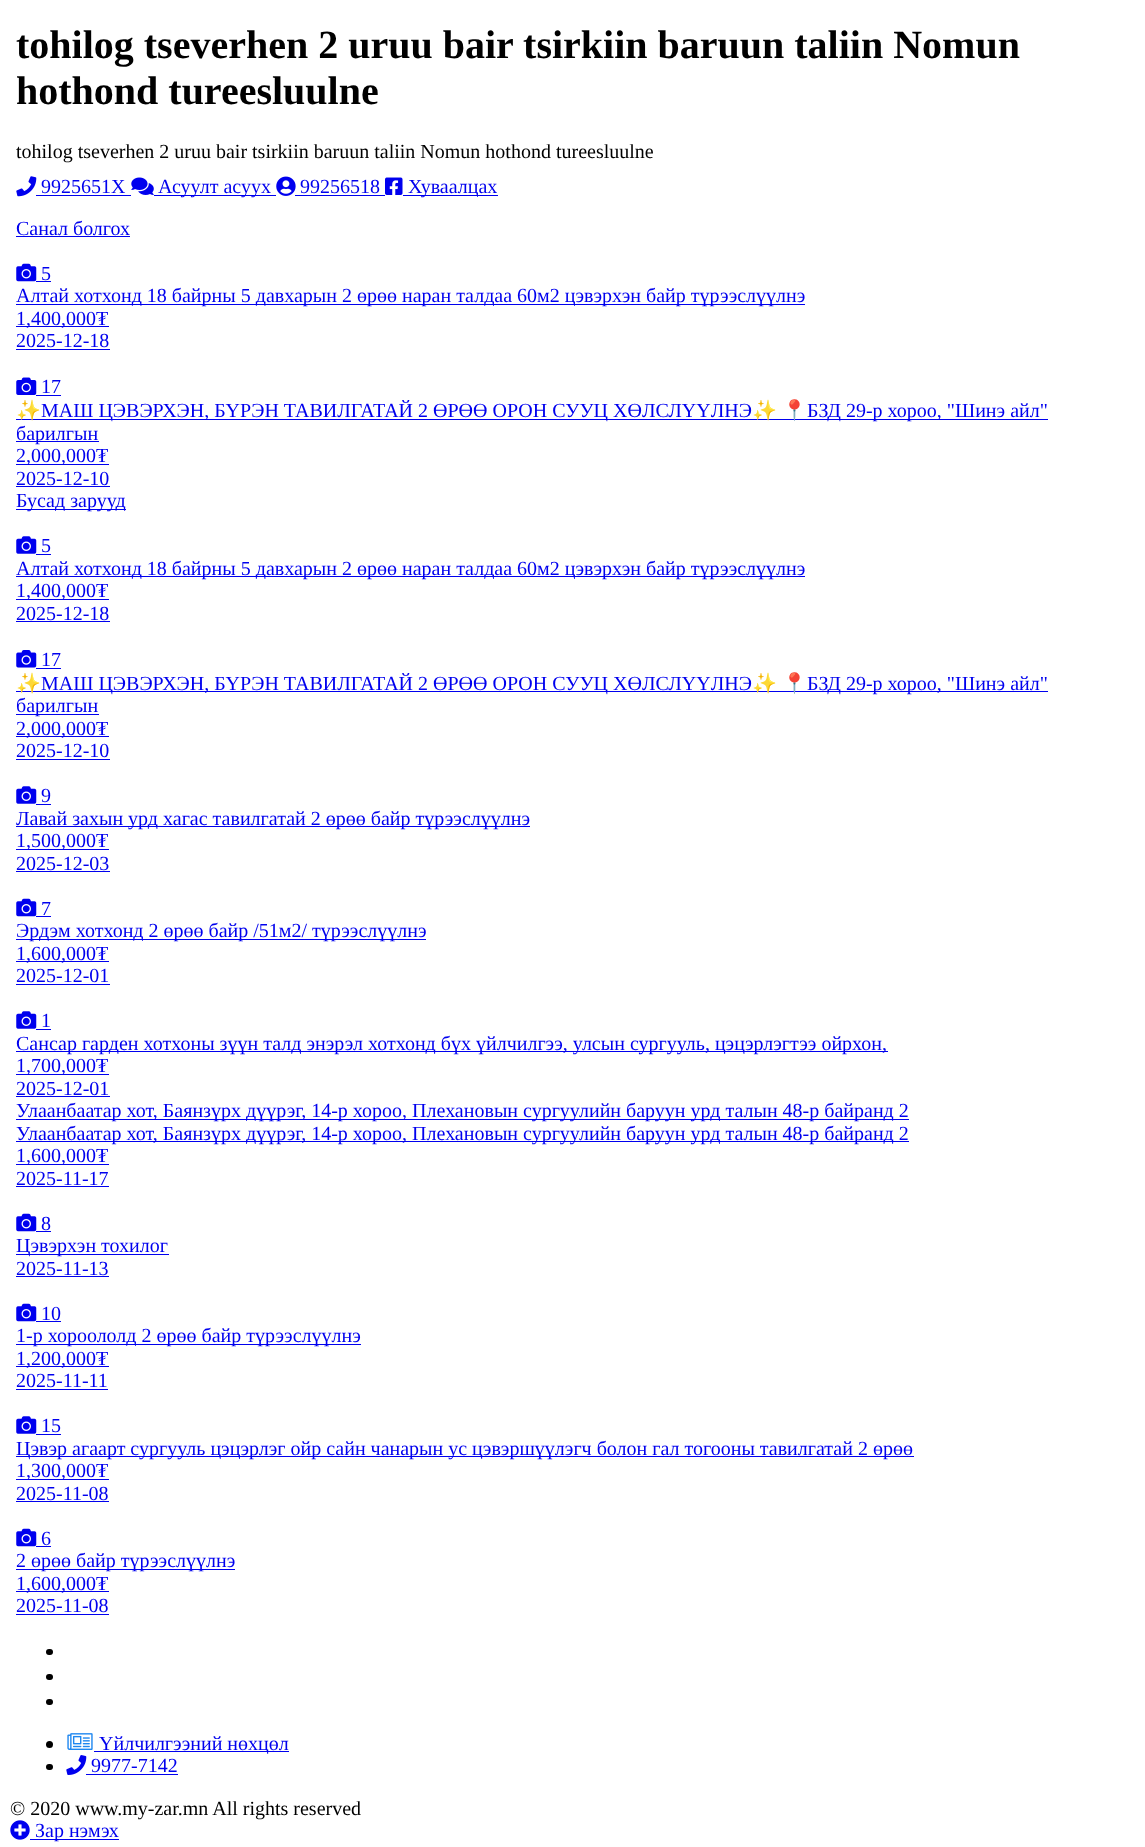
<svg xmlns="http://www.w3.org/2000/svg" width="1145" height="1847">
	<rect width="100%" height="100%" fill="#FFFFFF" />
	<g font-family="Liberation Serif" font-size="40" font-weight="700" fill="#000000">
		<text x="16" y="58">tohilog tseverhen 2 uruu bair tsirkiin baruun taliin Nomun</text>
		<text x="16" y="104">hothond tureesluulne</text>
	</g>
	<text x="16" y="158" font-family="Liberation Serif" font-size="20" fill="#000000">tohilog tseverhen 2 uruu bair tsirkiin baruun taliin Nomun hothond tureesluulne</text>
	<image x="16" y="176" width="21" height="21" href="assets/img1.png" />
	<text x="41" y="193" font-family="Liberation Serif" font-size="20" fill="#0000EE">9925651X</text>
	<rect x="36" y="195" width="95" height="1" fill="#0000EE" />
	<image x="131" y="177" width="23" height="18" href="assets/img2.png" />
	<rect x="154" y="195" width="122" height="1" fill="#0000EE" />
	<text x="158" y="193" font-family="Liberation Serif" font-size="20" fill="#0000EE">Асуулт асуух</text>
	<image x="276" y="176" width="20" height="20" href="assets/img3.png" />
	<text x="300" y="193" font-family="Liberation Serif" font-size="20" fill="#0000EE">99256518</text>
	<rect x="295" y="195" width="90" height="1" fill="#0000EE" />
	<image x="385" y="177" width="18" height="18" href="assets/img4.png" />
	<rect x="403" y="195" width="95" height="1" fill="#0000EE" />
	<g font-family="Liberation Serif" font-size="20" fill="#0000EE">
		<text x="408" y="193">Хуваалцах</text>
		<text x="16" y="235">Санал болгох</text>
	</g>
	<rect x="16" y="236" width="114" height="1" fill="#0000EE" />
	<image x="16" y="263" width="21" height="19" href="assets/img5.png" />
	<text x="41" y="280" font-family="Liberation Serif" font-size="20" fill="#0000EE">5</text>
	<rect x="36" y="281" width="15" height="1" fill="#0000EE" />
	<rect x="16" y="304" width="789" height="1" fill="#0000EE" />
	<text x="16" y="302" font-family="Liberation Serif" font-size="20" fill="#0000EE">Алтай хотхонд 18 байрны 5 давхарын 2 өрөө наран талдаа 60м2 цэвэрхэн байр түрээслүүлнэ</text>
	<rect x="16" y="326" width="93" height="1" fill="#0000EE" />
	<g font-family="Liberation Serif" font-size="20" fill="#0000EE">
		<text x="16" y="325">1,400,000₮</text>
		<text x="16" y="347">2025-12-18</text>
	</g>
	<rect x="16" y="349" width="94" height="1" fill="#0000EE" />
	<image x="16" y="377" width="21" height="18" href="assets/img6.png" />
	<text x="41" y="393" font-family="Liberation Serif" font-size="20" fill="#0000EE">17</text>
	<rect x="36" y="395" width="25" height="1" fill="#0000EE" />
	<rect x="16" y="419" width="1032" height="1" fill="#0000EE" />
	<text x="16" y="417" font-family="Noto Color Emoji" font-size="20" fill="#0000EE">✨</text>
	<text x="41" y="417" font-family="Liberation Serif" font-size="20" fill="#0000EE">МАШ ЦЭВЭРХЭН, БҮРЭН ТАВИЛГАТАЙ 2 ӨРӨӨ ОРОН СУУЦ ХӨЛСЛҮҮЛНЭ</text>
	<g font-family="Noto Color Emoji" font-size="20" fill="#0000EE">
		<text x="752" y="417">✨</text>
		<text x="782" y="417">📍</text>
	</g>
	<text x="807" y="417" font-family="Liberation Serif" font-size="20" fill="#0000EE">БЗД 29-р хороо, "Шинэ айл"</text>
	<rect x="16" y="441" width="83" height="1" fill="#0000EE" />
	<text x="16" y="440" font-family="Liberation Serif" font-size="20" fill="#0000EE">барилгын</text>
	<rect x="16" y="464" width="93" height="1" fill="#0000EE" />
	<g font-family="Liberation Serif" font-size="20" fill="#0000EE">
		<text x="16" y="462">2,000,000₮</text>
		<text x="16" y="485">2025-12-10</text>
	</g>
	<rect x="16" y="486" width="94" height="1" fill="#0000EE" />
	<rect x="16" y="509" width="110" height="1" fill="#0000EE" />
	<text x="16" y="507" font-family="Liberation Serif" font-size="20" fill="#0000EE">Бусад зарууд</text>
	<image x="16" y="536" width="21" height="18" href="assets/img7.png" />
	<text x="41" y="552" font-family="Liberation Serif" font-size="20" fill="#0000EE">5</text>
	<rect x="36" y="554" width="15" height="1" fill="#0000EE" />
	<rect x="16" y="576" width="789" height="1" fill="#0000EE" />
	<text x="16" y="575" font-family="Liberation Serif" font-size="20" fill="#0000EE">Алтай хотхонд 18 байрны 5 давхарын 2 өрөө наран талдаа 60м2 цэвэрхэн байр түрээслүүлнэ</text>
	<rect x="16" y="599" width="93" height="1" fill="#0000EE" />
	<g font-family="Liberation Serif" font-size="20" fill="#0000EE">
		<text x="16" y="597">1,400,000₮</text>
		<text x="16" y="620">2025-12-18</text>
	</g>
	<rect x="16" y="621" width="94" height="1" fill="#0000EE" />
	<image x="16" y="650" width="21" height="18" href="assets/img8.png" />
	<text x="41" y="666" font-family="Liberation Serif" font-size="20" fill="#0000EE">17</text>
	<rect x="36" y="668" width="25" height="1" fill="#0000EE" />
	<rect x="16" y="691" width="1032" height="1" fill="#0000EE" />
	<text x="16" y="690" font-family="Noto Color Emoji" font-size="20" fill="#0000EE">✨</text>
	<text x="41" y="690" font-family="Liberation Serif" font-size="20" fill="#0000EE">МАШ ЦЭВЭРХЭН, БҮРЭН ТАВИЛГАТАЙ 2 ӨРӨӨ ОРОН СУУЦ ХӨЛСЛҮҮЛНЭ</text>
	<g font-family="Noto Color Emoji" font-size="20" fill="#0000EE">
		<text x="752" y="690">✨</text>
		<text x="782" y="690">📍</text>
	</g>
	<text x="807" y="690" font-family="Liberation Serif" font-size="20" fill="#0000EE">БЗД 29-р хороо, "Шинэ айл"</text>
	<rect x="16" y="714" width="83" height="1" fill="#0000EE" />
	<text x="16" y="712" font-family="Liberation Serif" font-size="20" fill="#0000EE">барилгын</text>
	<rect x="16" y="736" width="93" height="1" fill="#0000EE" />
	<g font-family="Liberation Serif" font-size="20" fill="#0000EE">
		<text x="16" y="735">2,000,000₮</text>
		<text x="16" y="757">2025-12-10</text>
	</g>
	<rect x="16" y="759" width="94" height="1" fill="#0000EE" />
	<image x="16" y="786" width="21" height="18" href="assets/img7.png" />
	<text x="41" y="802" font-family="Liberation Serif" font-size="20" fill="#0000EE">9</text>
	<rect x="36" y="804" width="15" height="1" fill="#0000EE" />
	<rect x="16" y="826" width="514" height="1" fill="#0000EE" />
	<text x="16" y="825" font-family="Liberation Serif" font-size="20" fill="#0000EE">Лавай захын урд хагас тавилгатай 2 өрөө байр түрээслүүлнэ</text>
	<rect x="16" y="849" width="93" height="1" fill="#0000EE" />
	<g font-family="Liberation Serif" font-size="20" fill="#0000EE">
		<text x="16" y="847">1,500,000₮</text>
		<text x="16" y="870">2025-12-03</text>
	</g>
	<rect x="16" y="871" width="94" height="1" fill="#0000EE" />
	<image x="16" y="898" width="21" height="19" href="assets/img5.png" />
	<text x="41" y="915" font-family="Liberation Serif" font-size="20" fill="#0000EE">7</text>
	<rect x="36" y="916" width="15" height="1" fill="#0000EE" />
	<rect x="16" y="939" width="410" height="1" fill="#0000EE" />
	<text x="16" y="937" font-family="Liberation Serif" font-size="20" fill="#0000EE">Эрдэм хотхонд 2 өрөө байр /51м2/ түрээслүүлнэ</text>
	<rect x="16" y="961" width="93" height="1" fill="#0000EE" />
	<g font-family="Liberation Serif" font-size="20" fill="#0000EE">
		<text x="16" y="960">1,600,000₮</text>
		<text x="16" y="982">2025-12-01</text>
	</g>
	<rect x="16" y="984" width="94" height="1" fill="#0000EE" />
	<image x="16" y="1011" width="21" height="18" href="assets/img7.png" />
	<text x="41" y="1027" font-family="Liberation Serif" font-size="20" fill="#0000EE">1</text>
	<rect x="36" y="1029" width="15" height="1" fill="#0000EE" />
	<rect x="16" y="1051" width="872" height="1" fill="#0000EE" />
	<text x="16" y="1050" font-family="Liberation Serif" font-size="20" fill="#0000EE">Сансар гарден хотхоны зүүн талд энэрэл хотхонд бүх үйлчилгээ, улсын сургууль, цэцэрлэгтээ ойрхон,</text>
	<rect x="16" y="1074" width="93" height="1" fill="#0000EE" />
	<g font-family="Liberation Serif" font-size="20" fill="#0000EE">
		<text x="16" y="1072">1,700,000₮</text>
		<text x="16" y="1095">2025-12-01</text>
	</g>
	<rect x="16" y="1096" width="94" height="1" fill="#0000EE" />
	<rect x="16" y="1119" width="893" height="1" fill="#0000EE" />
	<text x="16" y="1117" font-family="Liberation Serif" font-size="20" fill="#0000EE">Улаанбаатар хот, Баянзүрх дүүрэг, 14-р хороо, Плехановын сургуулийн баруун урд талын 48-р байранд 2</text>
	<rect x="16" y="1141" width="893" height="1" fill="#0000EE" />
	<text x="16" y="1140" font-family="Liberation Serif" font-size="20" fill="#0000EE">Улаанбаатар хот, Баянзүрх дүүрэг, 14-р хороо, Плехановын сургуулийн баруун урд талын 48-р байранд 2</text>
	<rect x="16" y="1164" width="93" height="1" fill="#0000EE" />
	<g font-family="Liberation Serif" font-size="20" fill="#0000EE">
		<text x="16" y="1162">1,600,000₮</text>
		<text x="16" y="1185">2025-11-17</text>
	</g>
	<rect x="16" y="1186" width="93" height="1" fill="#0000EE" />
	<image x="16" y="1213" width="21" height="19" href="assets/img5.png" />
	<text x="41" y="1230" font-family="Liberation Serif" font-size="20" fill="#0000EE">8</text>
	<rect x="36" y="1231" width="15" height="1" fill="#0000EE" />
	<rect x="16" y="1254" width="153" height="1" fill="#0000EE" />
	<g font-family="Liberation Serif" font-size="20" fill="#0000EE">
		<text x="16" y="1252">Цэвэрхэн тохилог</text>
		<text x="16" y="1275">2025-11-13</text>
	</g>
	<rect x="16" y="1276" width="93" height="1" fill="#0000EE" />
	<image x="16" y="1303" width="21" height="19" href="assets/img5.png" />
	<text x="41" y="1320" font-family="Liberation Serif" font-size="20" fill="#0000EE">10</text>
	<rect x="36" y="1321" width="25" height="1" fill="#0000EE" />
	<rect x="16" y="1344" width="345" height="1" fill="#0000EE" />
	<text x="16" y="1342" font-family="Liberation Serif" font-size="20" fill="#0000EE">1-р хороололд 2 өрөө байр түрээслүүлнэ</text>
	<rect x="16" y="1366" width="93" height="1" fill="#0000EE" />
	<g font-family="Liberation Serif" font-size="20" fill="#0000EE">
		<text x="16" y="1365">1,200,000₮</text>
		<text x="16" y="1387">2025-11-11</text>
	</g>
	<rect x="16" y="1389" width="92" height="1" fill="#0000EE" />
	<image x="16" y="1416" width="21" height="18" href="assets/img7.png" />
	<text x="41" y="1432" font-family="Liberation Serif" font-size="20" fill="#0000EE">15</text>
	<rect x="36" y="1434" width="25" height="1" fill="#0000EE" />
	<rect x="16" y="1456" width="898" height="1" fill="#0000EE" />
	<text x="16" y="1455" font-family="Liberation Serif" font-size="20" fill="#0000EE">Цэвэр агаарт сургууль цэцэрлэг ойр сайн чанарын ус цэвэршүүлэгч болон гал тогооны тавилгатай 2 өрөө</text>
	<rect x="16" y="1479" width="93" height="1" fill="#0000EE" />
	<g font-family="Liberation Serif" font-size="20" fill="#0000EE">
		<text x="16" y="1477">1,300,000₮</text>
		<text x="16" y="1500">2025-11-08</text>
	</g>
	<rect x="16" y="1501" width="93" height="1" fill="#0000EE" />
	<image x="16" y="1528" width="21" height="19" href="assets/img5.png" />
	<text x="41" y="1545" font-family="Liberation Serif" font-size="20" fill="#0000EE">6</text>
	<rect x="36" y="1546" width="15" height="1" fill="#0000EE" />
	<rect x="16" y="1569" width="219" height="1" fill="#0000EE" />
	<text x="16" y="1567" font-family="Liberation Serif" font-size="20" fill="#0000EE">2 өрөө байр түрээслүүлнэ</text>
	<rect x="16" y="1591" width="93" height="1" fill="#0000EE" />
	<g font-family="Liberation Serif" font-size="20" fill="#0000EE">
		<text x="16" y="1590">1,600,000₮</text>
		<text x="16" y="1612">2025-11-08</text>
	</g>
	<rect x="16" y="1614" width="93" height="1" fill="#0000EE" />
	<rect x="46" y="1649" width="7" height="6" rx="3" fill="#000000" />
	<rect x="46" y="1674" width="7" height="6" rx="3" fill="#000000" />
	<rect x="46" y="1699" width="7" height="6" rx="3" fill="#000000" />
	<circle cx="49.5" cy="1744.5" r="3.5" fill="#000000" />
	<image x="67" y="1733" width="26" height="17" href="assets/img9.png" />
	<rect x="94" y="1751" width="195" height="1" fill="#0000EE" />
	<text x="99" y="1750" font-family="Liberation Serif" font-size="20" fill="#0000EE">Үйлчилгээний нөхцөл</text>
	<rect x="46" y="1764" width="7" height="6" rx="3" fill="#000000" />
	<image x="66" y="1755" width="21" height="20" href="assets/img10.png" />
	<text x="91" y="1772" font-family="Liberation Serif" font-size="20" fill="#0000EE">9977-7142</text>
	<rect x="86" y="1774" width="92" height="1" fill="#0000EE" />
	<text x="10" y="1815" font-family="Liberation Serif" font-size="20" fill="#000000">© 2020 www.my-zar.mn All rights reserved</text>
	<image x="10" y="1820" width="20" height="20" href="assets/img11.png" />
	<rect x="30" y="1839" width="89" height="1" fill="#0000EE" />
	<text x="35" y="1837" font-family="Liberation Serif" font-size="20" fill="#0000EE">Зар нэмэх</text>
</svg>
